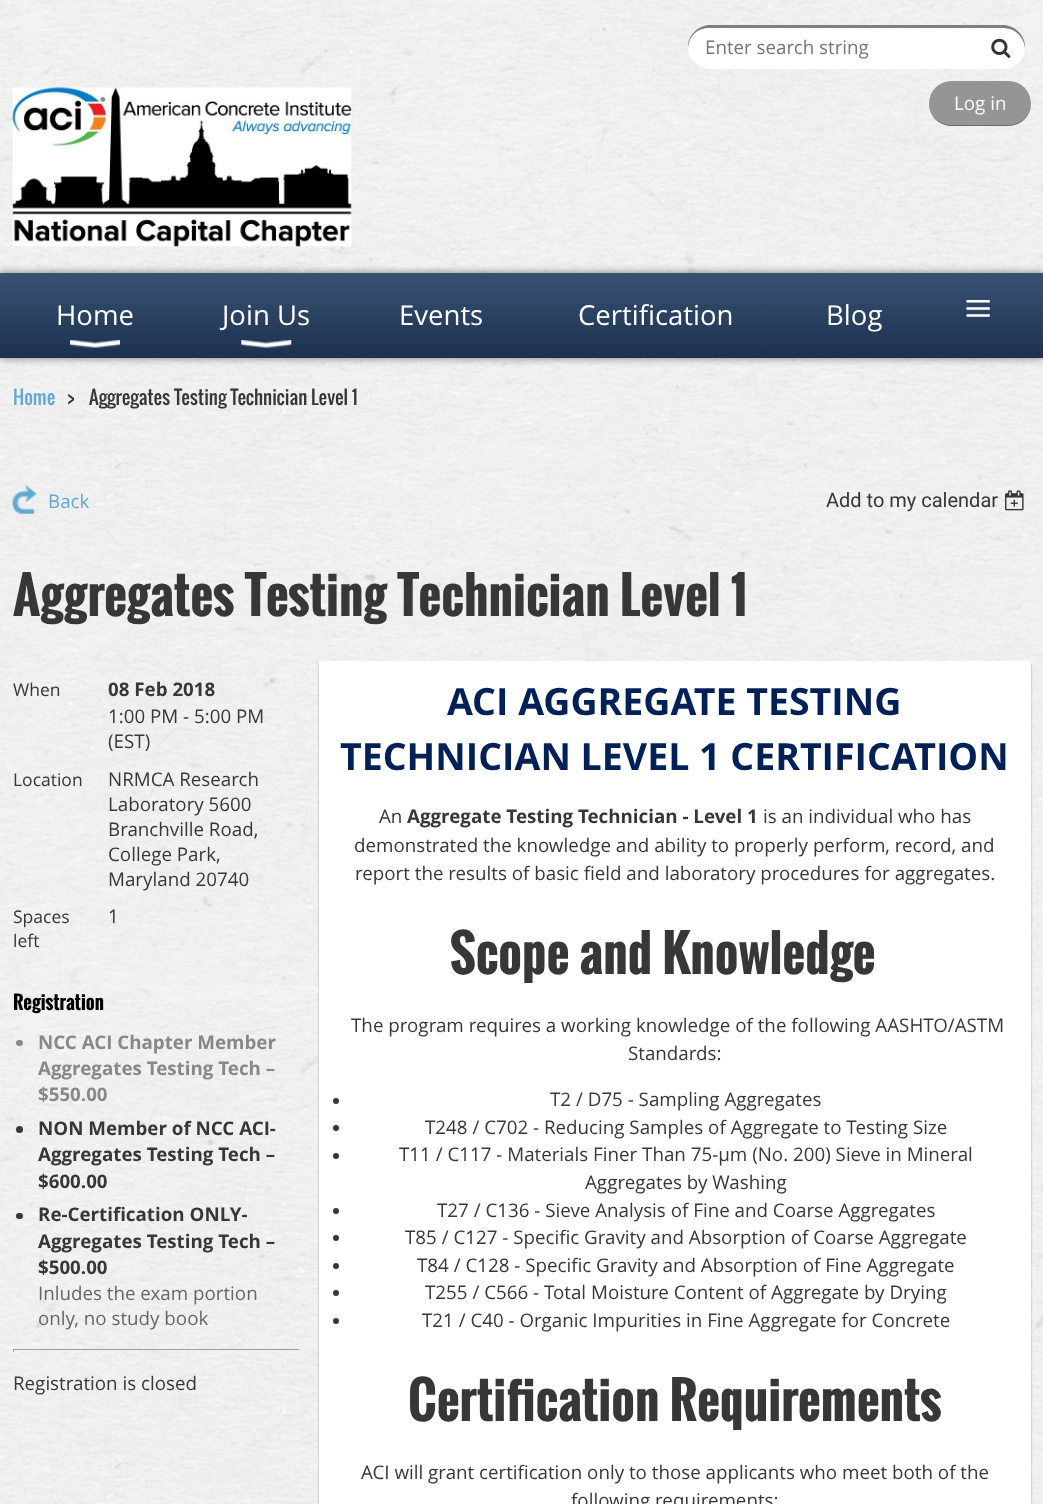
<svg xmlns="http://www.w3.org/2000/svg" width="1043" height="1504">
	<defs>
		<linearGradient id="g1" gradientUnits="userSpaceOnUse" x1="522" y1="272" x2="522" y2="358"><stop offset="0" stop-color="#395274" /><stop offset="1" stop-color="#1B314E" /></linearGradient>
	</defs>
	<rect width="100%" height="100%" fill="#FFFFFF" />
	<image x="0" y="0" width="1043" height="1504" href="assets/img1.png" />
	<rect x="688" y="25" width="337" height="44" rx="22" fill="#FFFFFF" />
	<path d="M709 28H1003C1015 28 1024 37 1025 48C1026 36 1015 25 1003 25H710C698 25 687 36 688 48C689 36 697 28 709 28Z" fill="#000000" fill-opacity="0.5" />
	<text x="705" y="54" font-family="Open Sans" font-size="18.75" fill="#757575">Enter search string</text>
	<image x="991" y="38" width="20" height="20" href="assets/img2.png" />
	<image x="12" y="87" width="340" height="160" href="assets/img3.png" />
	<rect x="929" y="81" width="102" height="45" rx="22.5" fill="#959595" />
	<path d="M929 103V104C929 116 939 126 952 126H1008C1021 126 1031 116 1031 104V103C1031 115 1021 125 1009 125H951C939 125 929 115 929 103Z" fill="#000000" fill-opacity="0.3" />
	<text x="954" y="110" font-family="Open Sans" font-size="18.75" fill="#FFFFFF">Log in</text>
	<rect x="0" y="273" width="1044" height="85" fill="#000000" fill-opacity="0.5" filter="blur(4px)" />
	<rect x="0" y="273" width="1043" height="85" fill="url(#g1)" />
	<text x="56" y="325" font-family="Open Sans" font-size="27.5" fill="#FFFFFF">Home</text>
	<image x="70" y="340" width="50" height="8" href="assets/img4.png" />
	<text x="222" y="325" font-family="Open Sans" font-size="27.5" fill="#FFFFFF">Join Us</text>
	<image x="241" y="340" width="51" height="8" href="assets/img5.png" />
	<g font-family="Open Sans" font-size="27.5" fill="#FFFFFF">
		<text x="399" y="325">Events</text>
		<text x="578" y="325">Certification</text>
		<text x="826" y="325">Blog</text>
	</g>
	<text x="964" y="325" font-family="Liberation Serif" font-size="50" fill="#FFFFFF">≡</text>
	<text x="13" y="405" font-family="Oswald" font-size="18.75" fill="#61A9D2">Home</text>
	<g font-family="Oswald" font-size="18.75" fill="#373737">
		<text x="67" y="405">&gt;</text>
		<text x="89" y="405">Aggregates Testing Technician Level 1</text>
	</g>
	<image x="12" y="485" width="25" height="29" href="assets/img6.png" />
	<text x="48" y="508" font-family="Open Sans" font-size="18.75" fill="#61A9D2">Back</text>
	<text x="826" y="507" font-family="Roboto" font-size="20" fill="#373737">Add to my calendar</text>
	<image x="1005" y="490" width="19" height="21" href="assets/img7.png" />
	<text x="13" y="616" font-family="Oswald" font-size="50" font-weight="700" fill="#373737">Aggregates Testing Technician Level 1</text>
	<text x="13" y="696" font-family="Open Sans" font-size="17.5" fill="#373737">When</text>
	<text x="108" y="696" font-family="Open Sans" font-size="18.75" font-weight="700" fill="#373737">08 Feb 2018</text>
	<g font-family="Open Sans" font-size="18.75" fill="#373737">
		<text x="108" y="723">1:00 PM - 5:00 PM</text>
		<text x="108" y="748">(EST)</text>
	</g>
	<text x="13" y="786" font-family="Open Sans" font-size="17.5" fill="#373737">Location</text>
	<g font-family="Open Sans" font-size="18.75" fill="#373737">
		<text x="108" y="786">NRMCA Research</text>
		<text x="108" y="811">Laboratory 5600</text>
		<text x="108" y="836">Branchville Road,</text>
		<text x="108" y="861">College Park,</text>
		<text x="108" y="886">Maryland 20740</text>
	</g>
	<g font-family="Open Sans" font-size="17.5" fill="#373737">
		<text x="13" y="923">Spaces</text>
		<text x="13" y="947">left</text>
	</g>
	<text x="108" y="923" font-family="Open Sans" font-size="18.75" fill="#373737">1</text>
	<text x="13" y="1010" font-family="Oswald" font-size="18.75" font-weight="700" fill="#000000">Registration</text>
	<rect x="16" y="1040" width="7" height="6" rx="3" fill="#888888" />
	<g font-family="Open Sans" font-size="18.75" font-weight="700" fill="#888888">
		<text x="38" y="1049">NCC ACI Chapter Member</text>
		<text x="38" y="1075">Aggregates Testing Tech –</text>
		<text x="38" y="1101">$550.00</text>
	</g>
	<circle cx="19.5" cy="1129.5" r="3.5" fill="#373737" />
	<g font-family="Open Sans" font-size="18.75" font-weight="700" fill="#373737">
		<text x="38" y="1135">NON Member of NCC ACI-</text>
		<text x="38" y="1161">Aggregates Testing Tech –</text>
		<text x="38" y="1188">$600.00</text>
	</g>
	<rect x="16" y="1213" width="7" height="6" rx="3" fill="#373737" />
	<g font-family="Open Sans" font-size="18.75" font-weight="700" fill="#373737">
		<text x="38" y="1221">Re-Certification ONLY-</text>
		<text x="38" y="1248">Aggregates Testing Tech –</text>
		<text x="38" y="1274">$500.00</text>
	</g>
	<g font-family="Open Sans" font-size="18.75" fill="#666666">
		<text x="38" y="1300">Inludes the exam portion</text>
		<text x="38" y="1325">only, no study book</text>
	</g>
	<rect x="13" y="1349" width="287" height="1" fill="#9F9F9F" />
	<rect x="299" y="1349" width="1" height="3" fill="#EEEEEE" />
	<rect x="13" y="1350" width="287" height="1" fill="#EEEEEE" />
	<rect x="13" y="1349" width="1" height="3" fill="#9F9F9F" />
	<text x="13" y="1390" font-family="Open Sans" font-size="18.75" fill="#373737">Registration is closed</text>
	<rect x="319" y="664" width="712" height="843" fill="#000000" fill-opacity="0.3" filter="blur(1px)" />
	<rect x="319" y="661" width="712" height="843" fill="#FFFFFF" />
	<g font-family="Open Sans" font-size="37.5" font-weight="700" fill="#002157">
		<text x="447" y="715">ACI AGGREGATE TESTING</text>
		<text x="340" y="770">TECHNICIAN LEVEL 1 CERTIFICATION</text>
	</g>
	<text x="379" y="823" font-family="Open Sans" font-size="18.75" fill="#373737">An</text>
	<text x="407" y="823" font-family="Open Sans" font-size="18.75" font-weight="700" fill="#373737">Aggregate Testing Technician - Level 1</text>
	<g font-family="Open Sans" font-size="18.75" fill="#373737">
		<text x="763" y="823">is an individual who has</text>
		<text x="354" y="852">demonstrated the knowledge and ability to properly perform, record, and</text>
		<text x="355" y="880">report the results of basic field and laboratory procedures for aggregates.</text>
	</g>
	<text x="450" y="974" font-family="Oswald" font-size="50" font-weight="700" fill="#373737">Scope and Knowledge</text>
	<g font-family="Open Sans" font-size="18.75" fill="#373737">
		<text x="351" y="1032">The program requires a working knowledge of the following AASHTO/ASTM</text>
		<text x="628" y="1060">Standards:</text>
	</g>
	<circle cx="336" cy="1101" r="3" fill="#373737" />
	<text x="550" y="1106" font-family="Open Sans" font-size="18.75" fill="#373737">T2 / D75 - Sampling Aggregates</text>
	<circle cx="336" cy="1128" r="3" fill="#373737" />
	<text x="425" y="1134" font-family="Open Sans" font-size="18.75" fill="#373737">T248 / C702 - Reducing Samples of Aggregate to Testing Size</text>
	<circle cx="336" cy="1156" r="3" fill="#373737" />
	<g font-family="Open Sans" font-size="18.75" fill="#373737">
		<text x="399" y="1161">T11 / C117 - Materials Finer Than 75-µm (No. 200) Sieve in Mineral</text>
		<text x="585" y="1189">Aggregates by Washing</text>
	</g>
	<circle cx="336" cy="1211" r="3" fill="#373737" />
	<text x="437" y="1217" font-family="Open Sans" font-size="18.75" fill="#373737">T27 / C136 - Sieve Analysis of Fine and Coarse Aggregates</text>
	<circle cx="336" cy="1238" r="3" fill="#373737" />
	<text x="405" y="1244" font-family="Open Sans" font-size="18.75" fill="#373737">T85 / C127 - Specific Gravity and Absorption of Coarse Aggregate</text>
	<circle cx="336" cy="1266" r="3" fill="#373737" />
	<text x="417" y="1272" font-family="Open Sans" font-size="18.75" fill="#373737">T84 / C128 - Specific Gravity and Absorption of Fine Aggregate</text>
	<circle cx="336" cy="1293" r="3" fill="#373737" />
	<text x="425" y="1299" font-family="Open Sans" font-size="18.75" fill="#373737">T255 / C566 - Total Moisture Content of Aggregate by Drying</text>
	<circle cx="336" cy="1321" r="3" fill="#373737" />
	<text x="422" y="1327" font-family="Open Sans" font-size="18.75" fill="#373737">T21 / C40 - Organic Impurities in Fine Aggregate for Concrete</text>
	<text x="408" y="1421" font-family="Oswald" font-size="50" font-weight="700" fill="#373737">Certification Requirements</text>
	<g font-family="Open Sans" font-size="18.75" fill="#373737">
		<text x="361" y="1479">ACI will grant certification only to those applicants who meet both of the</text>
		<text x="571" y="1507">following requirements:</text>
	</g>
</svg>
